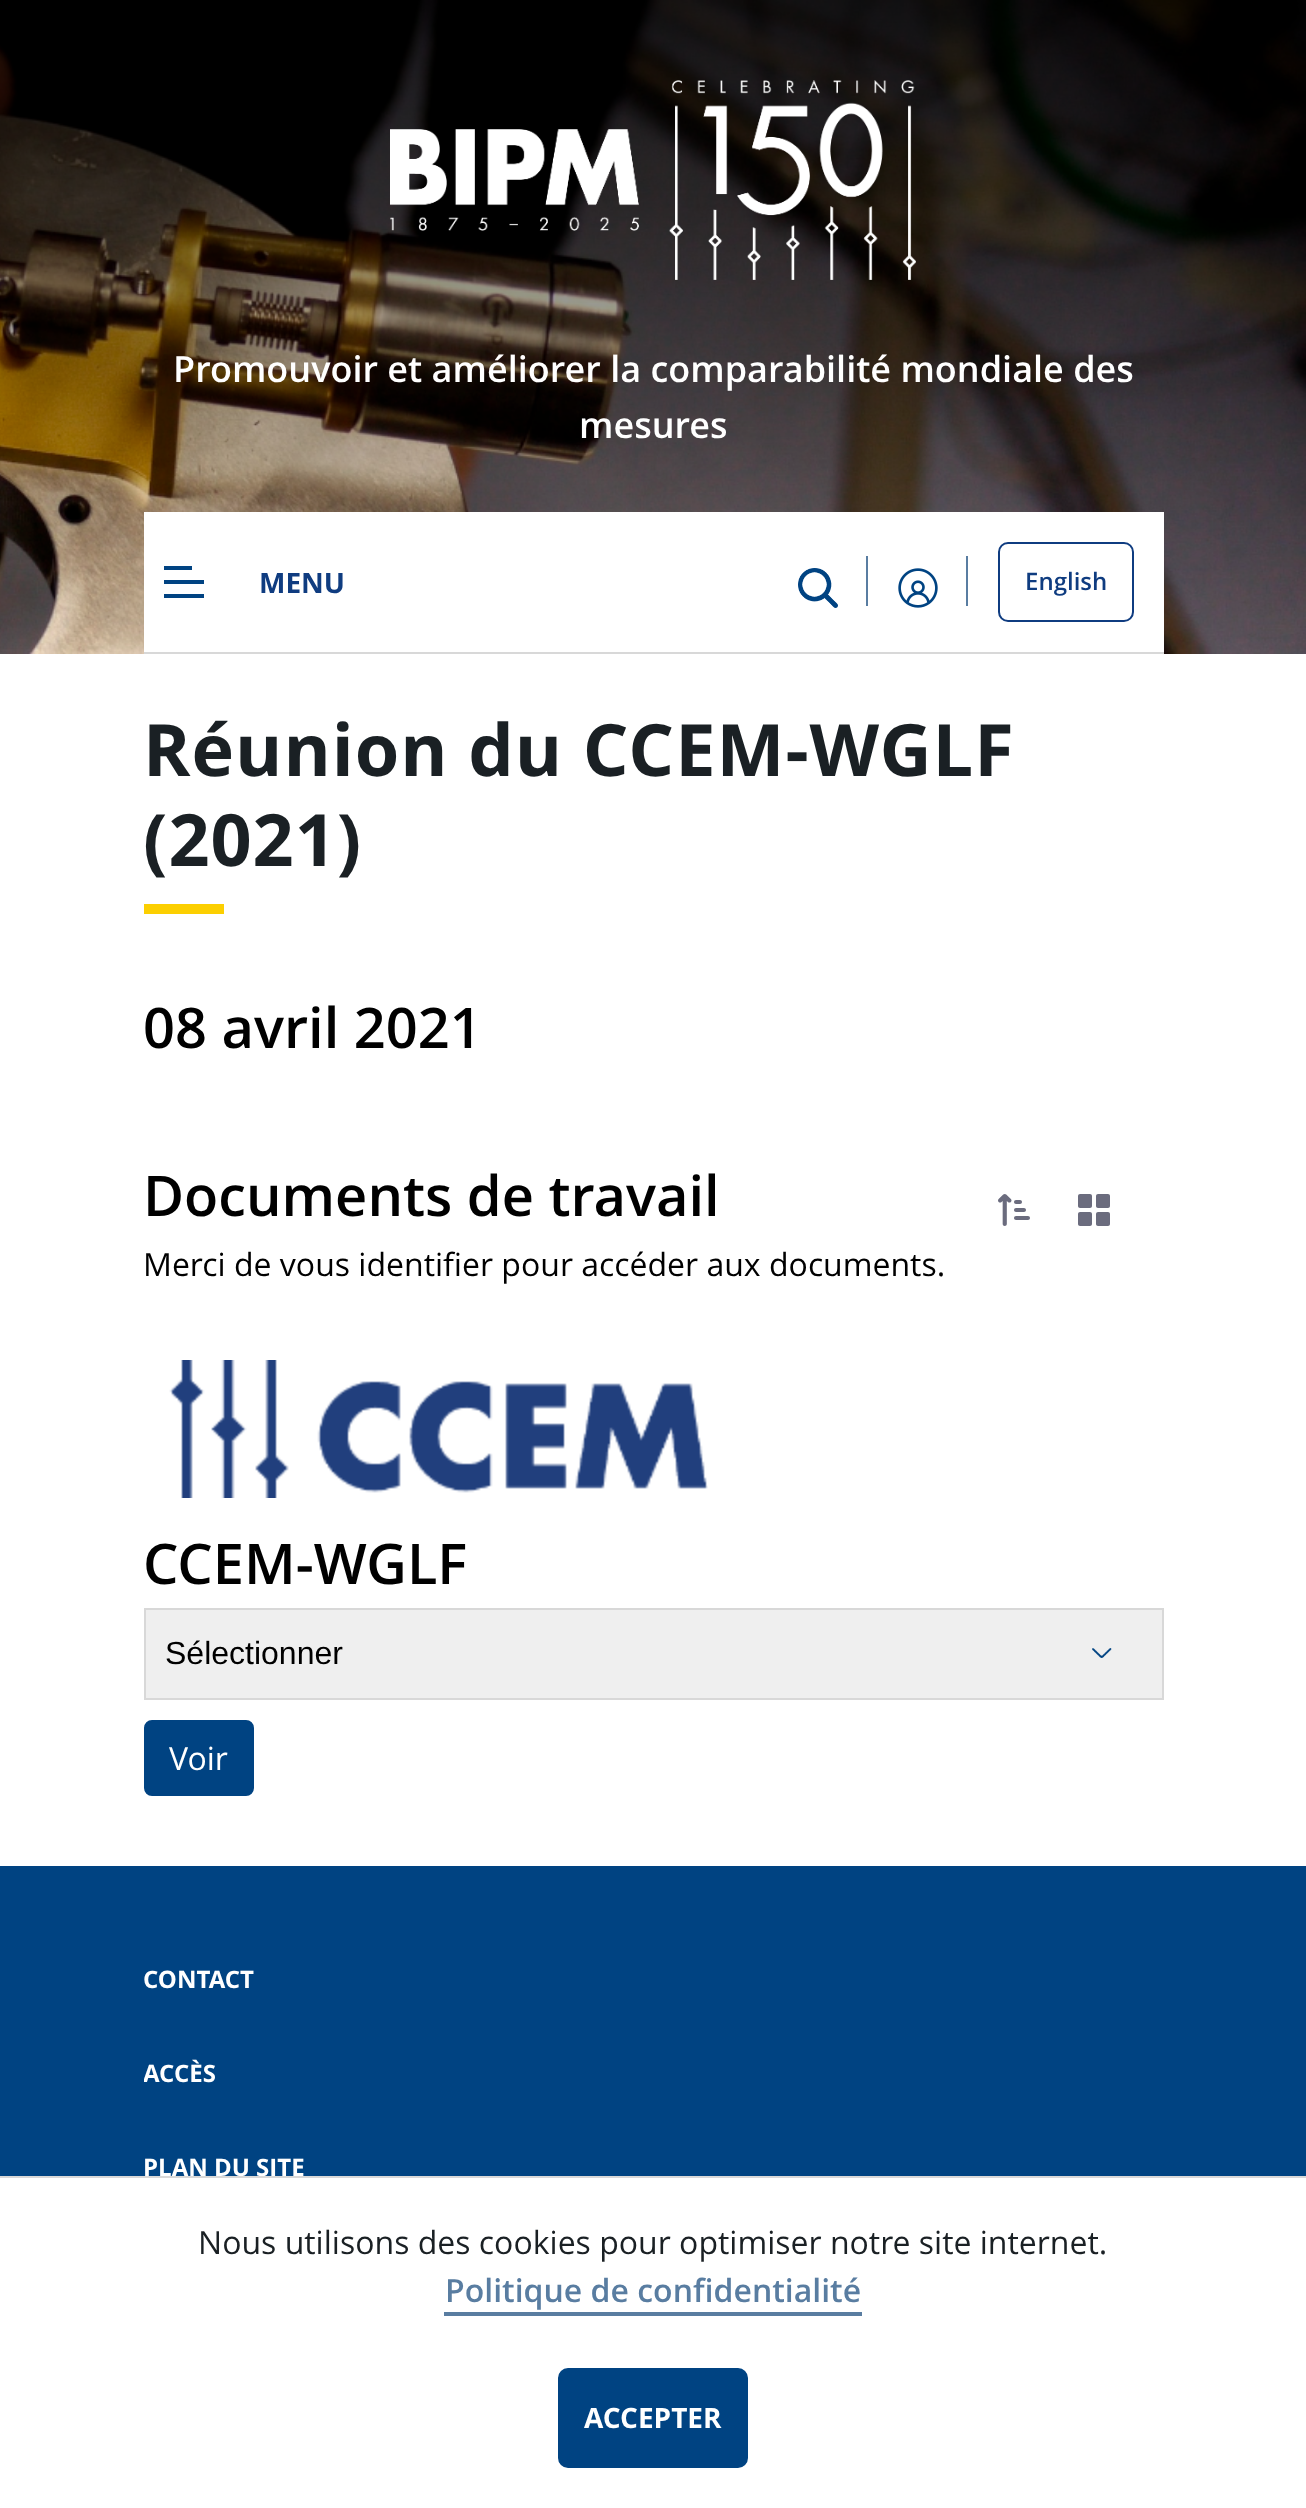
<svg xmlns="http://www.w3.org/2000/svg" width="1306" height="2508">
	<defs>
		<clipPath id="clip1"><rect x="144" y="2056" width="72" height="34" /></clipPath>
	</defs>
	<rect width="100%" height="100%" fill="#FFFFFF" />
	<image x="0" y="0" width="1306" height="654" href="assets/img1.png" />
	<image x="390" y="80" width="526" height="200" href="assets/img2.png" />
	<g font-family="Open Sans" font-size="36" font-weight="600" fill="#FFFFFF">
		<text x="173" y="382">Promouvoir et améliorer la comparabilité mondiale des</text>
		<text x="579" y="438">mesures</text>
	</g>
	<rect x="144" y="512" width="1020" height="140" fill="#FFFFFF" />
	<rect x="144" y="652" width="1020" height="2" fill="#D8D8D8" />
	<path d="M164 598H204V594H164ZM164 570H192V566H164ZM164 584H204V580H164Z" fill="#004382" fill-rule="evenodd" />
	<text x="259" y="593" font-family="Open Sans" font-size="28" font-weight="700" fill="#0F3C80">MENU</text>
	<image x="798" y="568" width="40" height="40" href="assets/img3.png" />
	<rect x="866" y="556" width="2" height="50" fill="#597DA1" />
	<image x="898" y="568" width="40" height="40" href="assets/img4.png" />
	<rect x="966" y="556" width="2" height="50" fill="#597DA1" />
	<rect x="999" y="543" width="134" height="78" rx="9" fill="none" stroke="#0F3C80" stroke-width="2" />
	<text x="1025" y="590" font-family="Open Sans" font-size="24" font-weight="600" fill="#0F3C80">English</text>
	<g font-family="Open Sans" font-size="72" font-weight="700" letter-spacing="1" fill="#1A2024">
		<text x="143" y="776">Réunion du CCEM-WGLF</text>
		<text x="143" y="866">(2021)</text>
	</g>
	<rect x="144" y="904" width="80" height="10" fill="#FCCF00" />
	<g font-family="Open Sans" font-size="56" font-weight="600" fill="#000000">
		<text x="143" y="1048">08 avril 2021</text>
		<text x="143" y="1216">Documents de travail</text>
	</g>
	<image x="998" y="1194" width="32" height="32" href="assets/img5.png" />
	<image x="1078" y="1194" width="32" height="32" href="assets/img6.png" />
	<text x="143" y="1276" font-family="Open Sans" font-size="32" fill="#000000">Merci de vous identifier pour accéder aux documents.</text>
	<image x="169" y="1360" width="539" height="138" href="assets/img7.png" />
	<text x="143" y="1584" font-family="Open Sans" font-size="56" font-weight="600" fill="#000000">CCEM-WGLF</text>
	<rect x="146" y="1610" width="1016" height="88" fill="#EFEFEF" />
	<image x="1092" y="1648" width="20" height="10" href="assets/img8.png" />
	<rect x="145" y="1609" width="1018" height="90" fill="none" stroke="#D8D8D8" stroke-width="2" />
	<text x="165" y="1664" font-family="Liberation Sans" font-size="32" fill="#000000">Sélectionner</text>
	<rect x="145" y="1721" width="108" height="74" rx="7" fill="#004382" stroke="#004382" stroke-width="2" />
	<text x="169" y="1770" font-family="Open Sans" font-size="32" fill="#FFFFFF">Voir</text>
	<rect x="0" y="1866" width="1306" height="310" fill="#004382" />
	<text x="143" y="1988" font-family="Open Sans" font-size="24" font-weight="700" fill="#FFFFFF">CONTACT</text>
	<g clip-path="url(#clip1)">
		<text x="143" y="2082" font-family="Open Sans" font-size="24" font-weight="700" fill="#FFFFFF">ACCÈS</text>
	</g>
	<text x="143" y="2176" font-family="Open Sans" font-size="24" font-weight="700" fill="#FFFFFF">PLAN DU SITE</text>
	<rect x="0" y="2176" width="1306" height="2" fill="#D8D8D8" />
	<text x="198" y="2254" font-family="Open Sans" font-size="32" fill="#1A2024">Nous utilisons des cookies pour optimiser notre site internet.</text>
	<rect x="444" y="2312" width="418" height="4" fill="#597DA1" />
	<text x="445" y="2302" font-family="Open Sans" font-size="32" font-weight="600" fill="#597DA1">Politique de confidentialité</text>
	<rect x="562" y="2372" width="182" height="92" rx="6" fill="#004382" stroke="#004382" stroke-width="8" />
	<text x="584" y="2428" font-family="Open Sans" font-size="28" font-weight="700" fill="#FFFFFF">ACCEPTER</text>
</svg>
